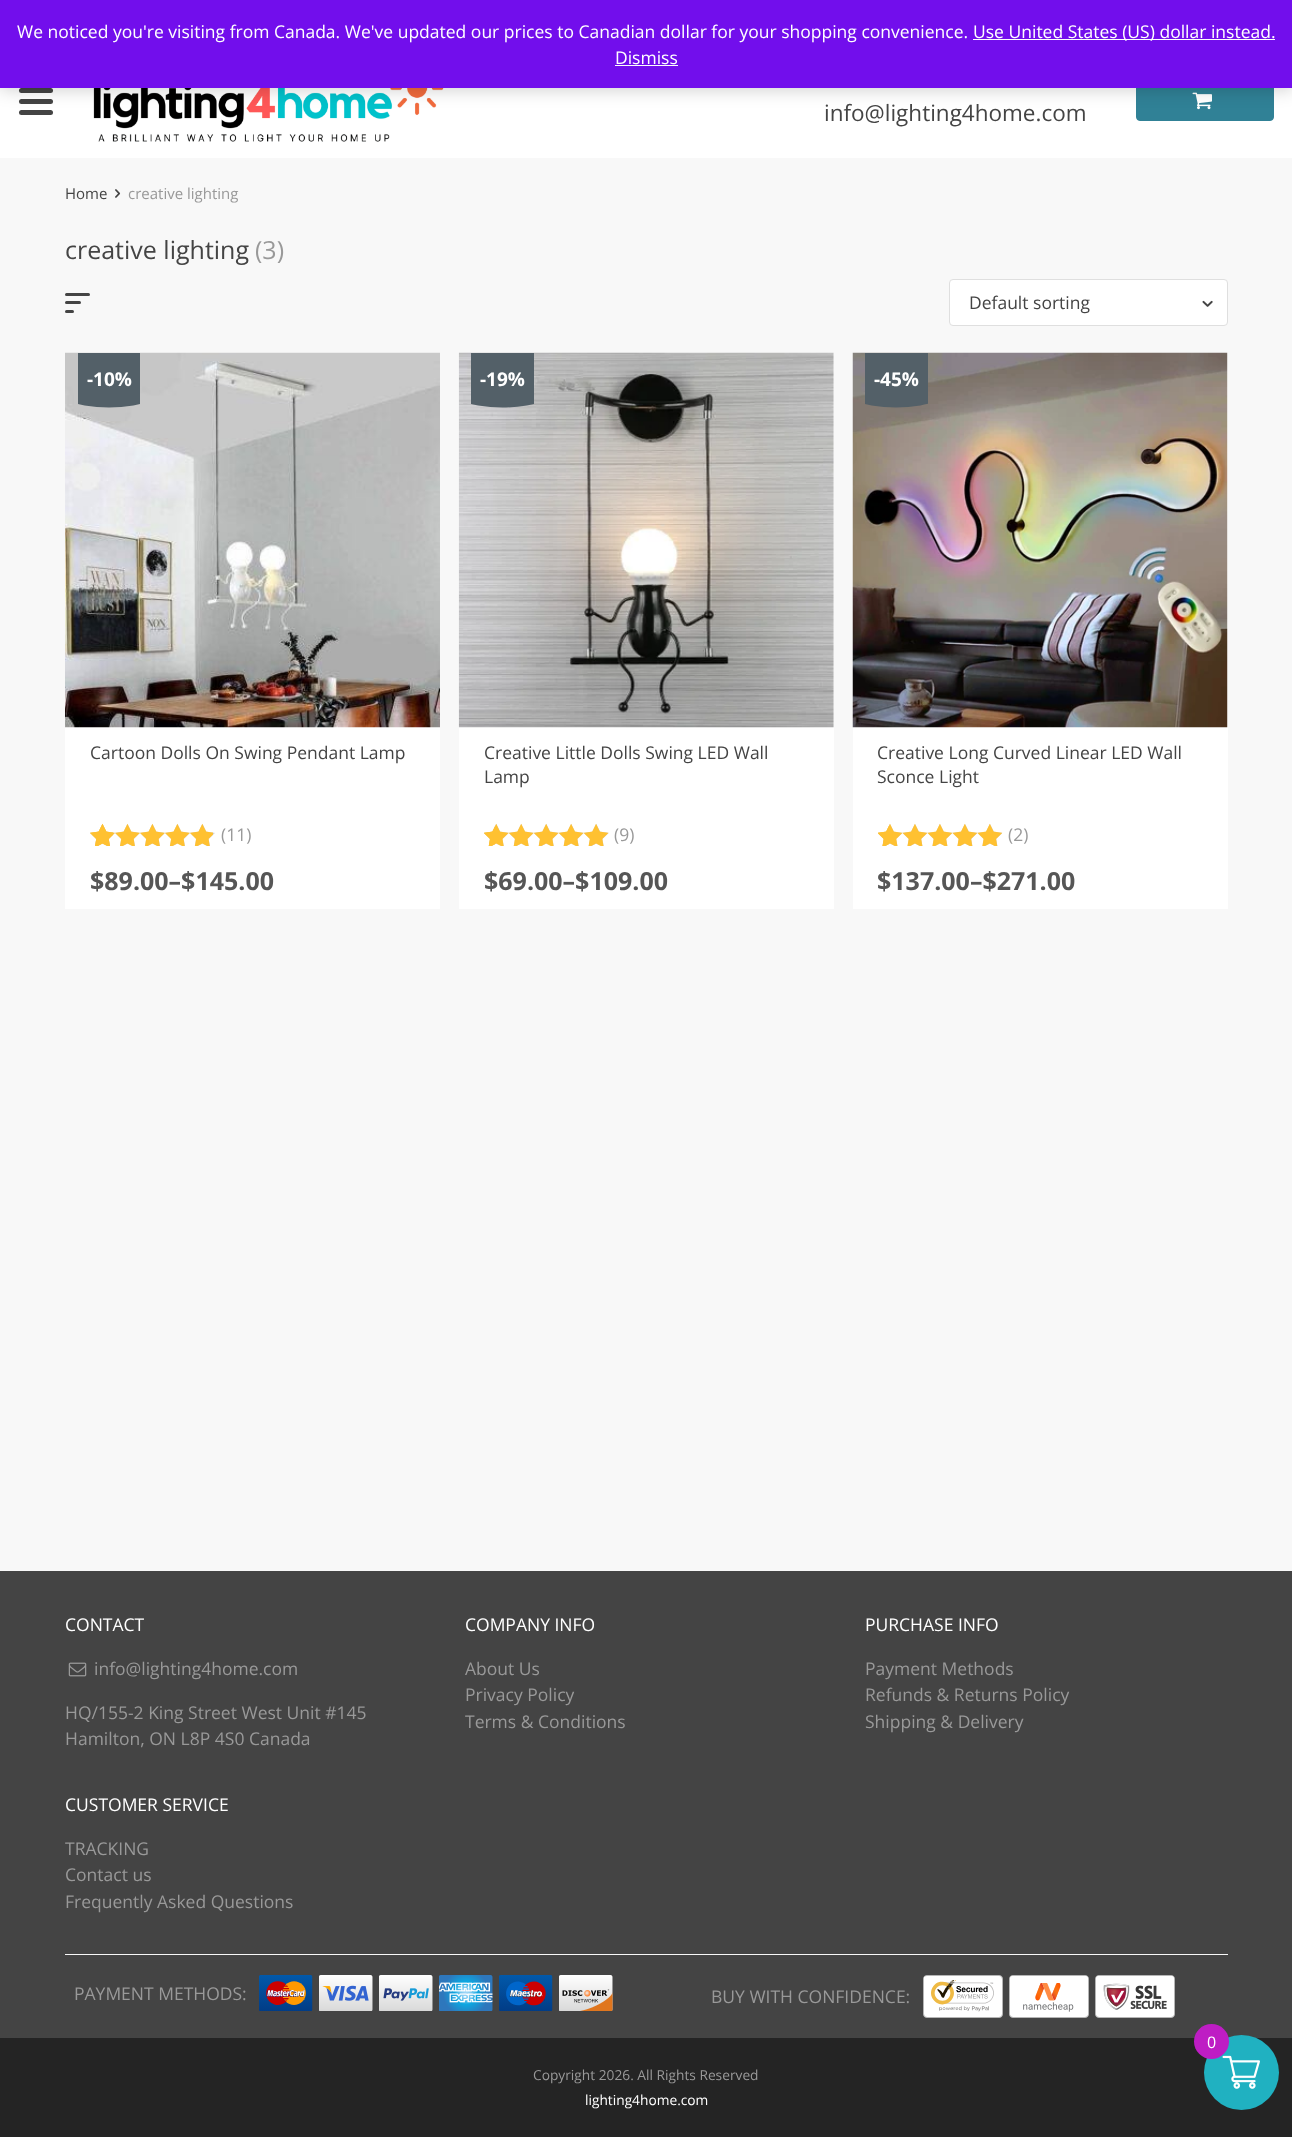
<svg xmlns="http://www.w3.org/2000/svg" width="1292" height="2137">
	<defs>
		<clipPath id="clip1"><rect x="78" y="353" width="62" height="55" /></clipPath>
		<clipPath id="clip2"><rect x="471" y="353" width="63" height="55" /></clipPath>
		<clipPath id="clip3"><rect x="865" y="353" width="63" height="55" /></clipPath>
	</defs>
	<rect width="100%" height="100%" fill="#F8F8F8" />
	<rect x="0" y="88" width="1292" height="70" fill="#FFFFFF" />
	<rect x="19" y="88" width="34" height="5" rx="2.5" fill="#444444" />
	<rect x="19" y="99" width="34" height="5" rx="2.5" fill="#444444" />
	<rect x="19" y="110" width="34" height="5" rx="2.5" fill="#444444" />
	<image x="93" y="88" width="351" height="54" href="assets/img1.png" />
	<rect x="1136.5" y="81.5" width="137" height="39" rx="3.5" fill="#308196" stroke="#308196" />
	<image x="1192" y="92" width="20" height="18" href="assets/img2.png" />
	<rect x="0" y="1" width="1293" height="88" fill="#000000" fill-opacity="0.2" filter="blur(9px)" />
	<rect x="0" y="0" width="1292" height="88" fill="#720EEC" />
	<text x="17" y="38" font-family="Open Sans" font-size="17.5" fill="#FFFFFF">We noticed you're visiting from Canada. We've updated our prices to Canadian dollar for your shopping convenience.</text>
	<rect x="973" y="39" width="302" height="1" fill="#FCFBFE" />
	<g font-family="Open Sans" font-size="17.5" fill="#FFFFFF">
		<text x="973" y="38">Use United States (US) dollar instead.</text>
		<text x="615" y="64">Dismiss</text>
	</g>
	<rect x="615" y="65" width="63" height="1" fill="#FCFBFE" />
	<text x="824" y="121" font-family="Open Sans" font-size="22.5" fill="#444444">info@lighting4home.com</text>
	<text x="65" y="199" font-family="Open Sans" font-size="15" fill="#444444">Home</text>
	<image x="115" y="189" width="6" height="9" href="assets/img3.png" />
	<text x="128" y="199" font-family="Open Sans" font-size="15" fill="#999999">creative lighting</text>
	<text x="65" y="259" font-family="Open Sans" font-size="25" fill="#444444">creative lighting</text>
	<text x="255" y="259" font-family="Open Sans" font-size="25" fill="#999999">(3)</text>
	<rect x="65" y="293" width="25" height="3" rx="1.5" fill="#444444" />
	<rect x="65" y="301" width="16" height="3" rx="1.5" fill="#444444" />
	<rect x="65" y="310" width="9" height="3" rx="1.5" fill="#444444" />
	<rect x="949.5" y="279.5" width="278" height="46" rx="3.5" fill="#FFFFFF" stroke="#DFDFDF" />
	<text x="969" y="309" font-family="Open Sans" font-size="17.5" fill="#444444">Default sorting</text>
	<image x="1202" y="300" width="11" height="7" href="assets/img4.png" />
	<rect x="65" y="727" width="375" height="182" fill="#FFFFFF" />
	<image x="65" y="352" width="375" height="376" href="assets/img5.png" />
	<g clip-path="url(#clip1)">
		<ellipse cx="109" cy="297.5" rx="125" ry="110" fill="#536068" />
	</g>
	<text x="87" y="386" font-family="Open Sans" font-size="19" font-weight="700" fill="#FFFFFF">-10%</text>
	<text x="90" y="759" font-family="Open Sans" font-size="17.5" fill="#444444">Cartoon Dolls On Swing Pendant Lamp</text>
	<image x="90" y="824" width="125" height="22" href="assets/img8.png" />
	<image x="90" y="823" width="123" height="23" href="assets/img6.png" />
	<image x="90" y="823" width="23" height="23" href="assets/img7.png" />
	<text x="221" y="841" font-family="Open Sans" font-size="17.5" fill="#999999">(11)</text>
	<text x="90" y="890" font-family="Open Sans" font-size="25" font-weight="700" fill="#565656">$89.00–$145.00</text>
	<rect x="459" y="353" width="375" height="556" fill="#FFFFFF" />
	<image x="458" y="352" width="376" height="376" href="assets/img9.png" />
	<g clip-path="url(#clip2)">
		<ellipse cx="502.5" cy="297.5" rx="125" ry="110" fill="#536068" />
	</g>
	<text x="480" y="386" font-family="Open Sans" font-size="19" font-weight="700" fill="#FFFFFF">-19%</text>
	<g font-family="Open Sans" font-size="17.5" fill="#444444">
		<text x="484" y="759">Creative Little Dolls Swing LED Wall</text>
		<text x="484" y="783">Lamp</text>
	</g>
	<image x="484" y="824" width="125" height="22" href="assets/img12.png" />
	<image x="484" y="823" width="125" height="23" href="assets/img10.png" />
	<image x="484" y="826" width="11" height="20" href="assets/img11.png" />
	<text x="614" y="841" font-family="Open Sans" font-size="17.5" fill="#999999">(9)</text>
	<text x="484" y="890" font-family="Open Sans" font-size="25" font-weight="700" fill="#565656">$69.00–$109.00</text>
	<rect x="853" y="353" width="375" height="556" fill="#FFFFFF" />
	<image x="852" y="352" width="376" height="376" href="assets/img13.png" />
	<g clip-path="url(#clip3)">
		<ellipse cx="896" cy="297.5" rx="125" ry="110" fill="#536068" />
	</g>
	<text x="874" y="386" font-family="Open Sans" font-size="19" font-weight="700" fill="#FFFFFF">-45%</text>
	<g font-family="Open Sans" font-size="17.5" fill="#444444">
		<text x="877" y="759">Creative Long Curved Linear LED Wall</text>
		<text x="877" y="783">Sconce Light</text>
	</g>
	<image x="878" y="824" width="124" height="22" href="assets/img16.png" />
	<image x="878" y="823" width="125" height="23" href="assets/img14.png" />
	<image x="878" y="826" width="11" height="20" href="assets/img15.png" />
	<text x="1008" y="841" font-family="Open Sans" font-size="17.5" fill="#999999">(2)</text>
	<text x="877" y="890" font-family="Open Sans" font-size="25" font-weight="700" fill="#565656">$137.00–$271.00</text>
	<rect x="0" y="1571" width="1292" height="467" fill="#444444" />
	<text x="65" y="1631" font-family="Open Sans" font-size="17.5" fill="#FFFFFF">CONTACT</text>
	<image x="68" y="1662" width="19" height="15" href="assets/img17.png" />
	<g font-family="Open Sans" font-size="17.5" fill="#999999">
		<text x="94" y="1675">info@lighting4home.com</text>
		<text x="65" y="1719">HQ/155-2 King Street West Unit #145</text>
		<text x="65" y="1745">Hamilton, ON L8P 4S0 Canada</text>
	</g>
	<text x="465" y="1631" font-family="Open Sans" font-size="17.5" fill="#FFFFFF">COMPANY INFO</text>
	<g font-family="Open Sans" font-size="17.5" fill="#999999">
		<text x="465" y="1675">About Us</text>
		<text x="465" y="1701">Privacy Policy</text>
		<text x="465" y="1728">Terms &amp; Conditions</text>
	</g>
	<text x="865" y="1631" font-family="Open Sans" font-size="17.5" fill="#FFFFFF">PURCHASE INFO</text>
	<g font-family="Open Sans" font-size="17.5" fill="#999999">
		<text x="865" y="1675">Payment Methods</text>
		<text x="865" y="1701">Refunds &amp; Returns Policy</text>
		<text x="865" y="1728">Shipping &amp; Delivery</text>
	</g>
	<text x="65" y="1811" font-family="Open Sans" font-size="17.5" fill="#FFFFFF">CUSTOMER SERVICE</text>
	<g font-family="Open Sans" font-size="17.5" fill="#999999">
		<text x="65" y="1855">TRACKING</text>
		<text x="65" y="1881">Contact us</text>
		<text x="65" y="1908">Frequently Asked Questions</text>
	</g>
	<rect x="65" y="1954" width="1163" height="1" fill="#F8F8F8" />
	<text x="74" y="2000" font-family="Open Sans" font-size="17.5" fill="#999999">PAYMENT METHODS:</text>
	<image x="259" y="1975" width="54" height="36" href="assets/img18.png" />
	<image x="319" y="1975" width="54" height="36" href="assets/img19.png" />
	<image x="379" y="1975" width="54" height="36" href="assets/img20.png" />
	<image x="439" y="1975" width="54" height="36" href="assets/img21.png" />
	<image x="499" y="1975" width="54" height="36" href="assets/img22.png" />
	<image x="559" y="1975" width="54" height="36" href="assets/img23.png" />
	<text x="711" y="2003" font-family="Open Sans" font-size="17.5" fill="#999999">BUY WITH CONFIDENCE:</text>
	<rect x="923.5" y="1975.5" width="79" height="42" rx="3.5" fill="#FFFFFF" stroke="#B5B5B5" />
	<image x="924" y="1976" width="77" height="36" href="assets/img24.png" />
	<rect x="1009.5" y="1975.5" width="79" height="42" rx="3.5" fill="#FFFFFF" stroke="#B5B5B5" />
	<image x="1010" y="1976" width="78" height="40" href="assets/img25.png" />
	<rect x="1095.5" y="1975.5" width="79" height="42" rx="3.5" fill="#FFFFFF" stroke="#B5B5B5" />
	<image x="1096" y="1976" width="78" height="40" href="assets/img26.png" />
	<rect x="0" y="2038" width="1292" height="99" fill="#242424" />
	<text x="533" y="2080" font-family="Open Sans" font-size="13.75" fill="#999999">Copyright 2026. All Rights Reserved</text>
	<text x="585" y="2105" font-family="Open Sans" font-size="13.75" fill="#FFFFFF">lighting4home.com</text>
	<circle cx="1241.5" cy="2072.5" r="37.5" fill="#20B1C1" />
	<image x="1222" y="2055" width="38" height="34" href="assets/img27.png" />
	<circle cx="1211.5" cy="2041.5" r="17.5" fill="#BE1DC4" />
	<text x="1207" y="2048" font-family="Open Sans" font-size="16" fill="#FFFFFF">0</text>
</svg>
